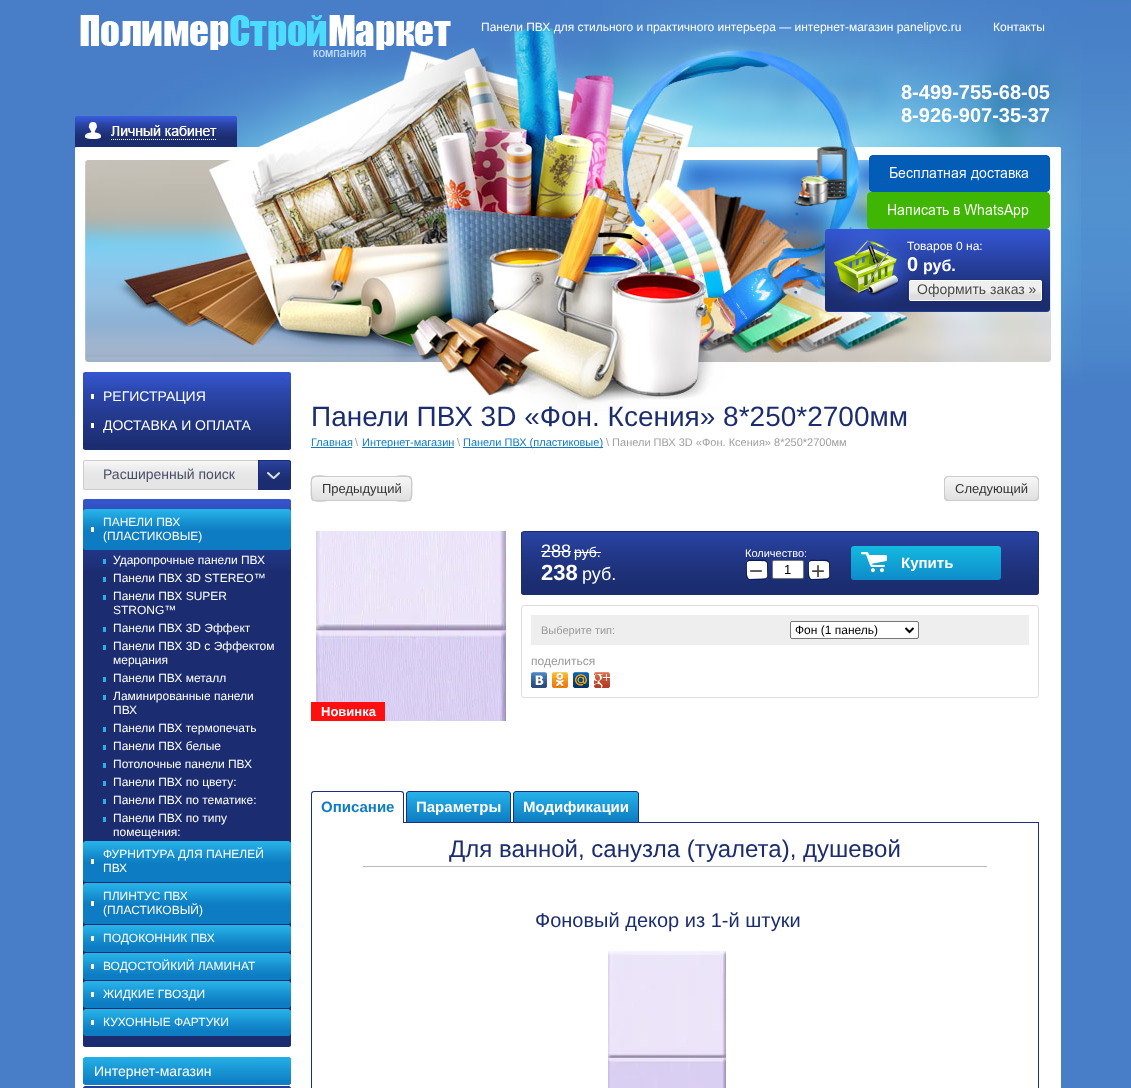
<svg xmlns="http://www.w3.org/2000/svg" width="1131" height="1088">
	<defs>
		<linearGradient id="g1" gradientUnits="userSpaceOnUse" x1="362" y1="476" x2="362" y2="501"><stop offset="0" stop-color="#F8F8F8" /><stop offset="1" stop-color="#DFDFDF" /></linearGradient>
		<linearGradient id="g2" gradientUnits="userSpaceOnUse" x1="992" y1="476" x2="992" y2="501"><stop offset="0" stop-color="#F8F8F8" /><stop offset="1" stop-color="#DFDFDF" /></linearGradient>
		<linearGradient id="g3" gradientUnits="userSpaceOnUse" x1="926" y1="546" x2="926" y2="580"><stop offset="0" stop-color="#14B9DF" /><stop offset="1" stop-color="#0E8CCA" /></linearGradient>
		<clipPath id="clip1"><path d="M409 791H508C509.5 791 511 792.5 511 794V823H406V794C406 792.5 407.5 791 409 791Z" /></clipPath>
		<linearGradient id="g4" gradientUnits="userSpaceOnUse" x1="459" y1="792" x2="459" y2="822"><stop offset="0" stop-color="#26B2E8" /><stop offset="1" stop-color="#0D7CC2" /></linearGradient>
		<clipPath id="clip2"><path d="M516 791H636C637.5 791 639 792.5 639 794V823H513V794C513 792.5 514.5 791 516 791Z" /></clipPath>
		<linearGradient id="g5" gradientUnits="userSpaceOnUse" x1="576" y1="792" x2="576" y2="822"><stop offset="0" stop-color="#26B2E8" /><stop offset="1" stop-color="#0D7CC2" /></linearGradient>
	</defs>
	<rect width="100%" height="100%" fill="#477EC7" />
	<rect x="75" y="414" width="986" height="674" fill="#FFFFFF" />
	<image x="73" y="0" width="1008" height="414" href="assets/img1.png" />
	<image x="80" y="15" width="371" height="42" href="assets/img2.png" />
	<g font-family="Liberation Sans" font-size="12" fill="#FFFFFF">
		<text x="481" y="31">Панели ПВХ для стильного и практичного интерьера — интернет-магазин panelipvc.ru</text>
		<text x="993" y="31">Контакты</text>
	</g>
	<image x="793" y="146" width="58" height="60" href="assets/img3.png" />
	<g font-family="Liberation Sans" font-size="20" font-weight="700" fill="#FFFFFF">
		<text x="901" y="99">8-499-755-68-05</text>
		<text x="901" y="122">8-926-907-35-37</text>
	</g>
	<image x="869" y="155" width="181" height="37" href="assets/img4.png" />
	<image x="867" y="192" width="183" height="37" href="assets/img5.png" />
	<image x="75" y="116" width="162" height="31" href="assets/img6.png" />
	<image x="825" y="229" width="225" height="83" href="assets/img7.png" />
	<text x="907" y="250" font-family="Liberation Sans" font-size="12" fill="#FFFFFF">Товаров 0 на:</text>
	<text x="907" y="271" font-family="Liberation Sans" font-size="20" font-weight="700" fill="#FFFFFF">0</text>
	<text x="923" y="271" font-family="Liberation Sans" font-size="16" font-weight="700" fill="#FFFFFF">руб.</text>
	<image x="907" y="279" width="137" height="22" href="assets/img8.png" />
	<text x="917" y="294" font-family="Liberation Sans" font-size="14" fill="#484848">Оформить заказ »</text>
	<rect x="83" y="443" width="208" height="4" fill="#1B2D70" />
	<image x="83" y="372" width="208" height="71" href="assets/img9.png" />
	<image x="83" y="447" width="208" height="3" href="assets/img10.png" />
	<rect x="91" y="394" width="3" height="5" fill="#FFFFFF" />
	<text x="103" y="401" font-family="Liberation Sans" font-size="14" fill="#FFFFFF">РЕГИСТРАЦИЯ</text>
	<rect x="91" y="423" width="3" height="5" fill="#FFFFFF" />
	<text x="103" y="430" font-family="Liberation Sans" font-size="14" fill="#FFFFFF">ДОСТАВКА И ОПЛАТА</text>
	<image x="83" y="460" width="208" height="30" href="assets/img11.png" />
	<text x="103" y="479" font-family="Liberation Sans" font-size="14" fill="#494F67">Расширенный поиск</text>
	<image x="267" y="472" width="13" height="7" href="assets/img12.png" />
	<rect x="83" y="570" width="208" height="474" fill="#1B2D70" />
	<image x="83" y="499" width="208" height="71" href="assets/img9.png" />
	<image x="83" y="1044" width="208" height="3" href="assets/img10.png" />
	<image x="83" y="509" width="208" height="41" href="assets/img13.png" />
	<rect x="91" y="527" width="3" height="5" fill="#FFFFFF" />
	<g font-family="Liberation Sans" font-size="12" fill="#FFFFFF">
		<text x="103" y="526">ПАНЕЛИ ПВХ</text>
		<text x="103" y="540">(ПЛАСТИКОВЫЕ)</text>
	</g>
	<rect x="103" y="559" width="3" height="5" fill="#25B1E7" />
	<text x="113" y="564" font-family="Liberation Sans" font-size="12" fill="#FFFFFF">Ударопрочные панели ПВХ</text>
	<rect x="103" y="577" width="3" height="5" fill="#25B1E7" />
	<text x="113" y="582" font-family="Liberation Sans" font-size="12" fill="#FFFFFF">Панели ПВХ 3D STEREO™</text>
	<rect x="103" y="595" width="3" height="5" fill="#25B1E7" />
	<g font-family="Liberation Sans" font-size="12" fill="#FFFFFF">
		<text x="113" y="600">Панели ПВХ SUPER</text>
		<text x="113" y="614">STRONG™</text>
	</g>
	<rect x="103" y="627" width="3" height="5" fill="#25B1E7" />
	<text x="113" y="632" font-family="Liberation Sans" font-size="12" fill="#FFFFFF">Панели ПВХ 3D Эффект</text>
	<rect x="103" y="645" width="3" height="5" fill="#25B1E7" />
	<g font-family="Liberation Sans" font-size="12" fill="#FFFFFF">
		<text x="113" y="650">Панели ПВХ 3D с Эффектом</text>
		<text x="113" y="664">мерцания</text>
	</g>
	<rect x="103" y="677" width="3" height="5" fill="#25B1E7" />
	<text x="113" y="682" font-family="Liberation Sans" font-size="12" fill="#FFFFFF">Панели ПВХ металл</text>
	<rect x="103" y="695" width="3" height="5" fill="#25B1E7" />
	<g font-family="Liberation Sans" font-size="12" fill="#FFFFFF">
		<text x="113" y="700">Ламинированные панели</text>
		<text x="113" y="714">ПВХ</text>
	</g>
	<rect x="103" y="727" width="3" height="5" fill="#25B1E7" />
	<text x="113" y="732" font-family="Liberation Sans" font-size="12" fill="#FFFFFF">Панели ПВХ термопечать</text>
	<rect x="103" y="745" width="3" height="5" fill="#25B1E7" />
	<text x="113" y="750" font-family="Liberation Sans" font-size="12" fill="#FFFFFF">Панели ПВХ белые</text>
	<rect x="103" y="763" width="3" height="5" fill="#25B1E7" />
	<text x="113" y="768" font-family="Liberation Sans" font-size="12" fill="#FFFFFF">Потолочные панели ПВХ</text>
	<rect x="103" y="781" width="3" height="5" fill="#25B1E7" />
	<text x="113" y="786" font-family="Liberation Sans" font-size="12" fill="#FFFFFF">Панели ПВХ по цвету:</text>
	<rect x="103" y="799" width="3" height="5" fill="#25B1E7" />
	<text x="113" y="804" font-family="Liberation Sans" font-size="12" fill="#FFFFFF">Панели ПВХ по тематике:</text>
	<rect x="103" y="817" width="3" height="5" fill="#25B1E7" />
	<g font-family="Liberation Sans" font-size="12" fill="#FFFFFF">
		<text x="113" y="822">Панели ПВХ по типу</text>
		<text x="113" y="836">помещения:</text>
	</g>
	<image x="83" y="841" width="208" height="41" href="assets/img14.png" />
	<rect x="91" y="859" width="3" height="5" fill="#FFFFFF" />
	<g font-family="Liberation Sans" font-size="12" fill="#FFFFFF">
		<text x="103" y="858">ФУРНИТУРА ДЛЯ ПАНЕЛЕЙ</text>
		<text x="103" y="872">ПВХ</text>
	</g>
	<image x="83" y="883" width="208" height="41" href="assets/img14.png" />
	<rect x="91" y="901" width="3" height="5" fill="#FFFFFF" />
	<g font-family="Liberation Sans" font-size="12" fill="#FFFFFF">
		<text x="103" y="900">ПЛИНТУС ПВХ</text>
		<text x="103" y="914">(ПЛАСТИКОВЫЙ)</text>
	</g>
	<image x="83" y="925" width="208" height="27" href="assets/img15.png" />
	<rect x="91" y="936" width="3" height="5" fill="#FFFFFF" />
	<text x="103" y="942" font-family="Liberation Sans" font-size="12" fill="#FFFFFF">ПОДОКОННИК ПВХ</text>
	<image x="83" y="953" width="208" height="27" href="assets/img15.png" />
	<rect x="91" y="964" width="3" height="5" fill="#FFFFFF" />
	<text x="103" y="970" font-family="Liberation Sans" font-size="12" fill="#FFFFFF">ВОДОСТОЙКИЙ ЛАМИНАТ</text>
	<image x="83" y="981" width="208" height="27" href="assets/img15.png" />
	<rect x="91" y="992" width="3" height="5" fill="#FFFFFF" />
	<text x="103" y="998" font-family="Liberation Sans" font-size="12" fill="#FFFFFF">ЖИДКИЕ ГВОЗДИ</text>
	<image x="83" y="1009" width="208" height="27" href="assets/img15.png" />
	<rect x="91" y="1020" width="3" height="5" fill="#FFFFFF" />
	<text x="103" y="1026" font-family="Liberation Sans" font-size="12" fill="#FFFFFF">КУХОННЫЕ ФАРТУКИ</text>
	<rect x="83" y="1080" width="208" height="3" fill="#0F80C5" />
	<image x="83" y="1057" width="208" height="23" href="assets/img16.png" />
	<image x="83" y="1083" width="208" height="2" href="assets/img17.png" />
	<text x="94" y="1076" font-family="Liberation Sans" font-size="14" fill="#FFFFFF">Интернет-магазин</text>
	<image x="83" y="1085" width="208" height="3" href="assets/img18.png" />
	<text x="311" y="426" font-family="Liberation Sans" font-size="28" fill="#1B2D70">Панели ПВХ 3D «Фон. Ксения» 8*250*2700мм</text>
	<text x="311" y="446" font-family="Liberation Sans" font-size="11" fill="#0D7CC2">Главная</text>
	<rect x="311" y="447" width="41" height="1" fill="#0D7CC2" />
	<text x="355" y="446" font-family="Liberation Sans" font-size="11" fill="#A0A0A0">\</text>
	<rect x="362" y="447" width="92" height="1" fill="#0D7CC2" />
	<text x="362" y="446" font-family="Liberation Sans" font-size="11" fill="#0D7CC2">Интернет-магазин</text>
	<text x="457" y="446" font-family="Liberation Sans" font-size="11" fill="#A0A0A0">\</text>
	<rect x="463" y="447" width="140" height="1" fill="#0D7CC2" />
	<text x="463" y="446" font-family="Liberation Sans" font-size="11" fill="#0D7CC2">Панели ПВХ (пластиковые)</text>
	<text x="606" y="446" font-family="Liberation Sans" font-size="11" fill="#A0A0A0">\ Панели ПВХ 3D «Фон. Ксения» 8*250*2700мм</text>
	<rect x="311" y="476" width="101" height="25" rx="4" fill="url(#g1)" />
	<path d="M313 477C309 479 311 488 311 491V498C312 504 325 501 330 501H410L411 499L410 500H332C312 500 312 504 312 488C312 485 311 479 313 477Z" fill="#CCCCCC" />
	<path d="M314 477H407C409 477 411 479 411 481V498L410 500C414 498 412 489 412 486V479C411 473 398 476 392 476H313L312 478Z" fill="#CCCCCC" />
	<path d="M312 499L313 501H392C398 501 411 504 412 498V491C412 488 414 479 410 477C412 479 411 485 411 488C411 504 411 500 392 500H313Z" fill="#CCCCCC" />
	<path d="M316 477H409L411 478L410 476H330C325 476 312 473 311 479V486C311 489 309 498 313 500C311 498 312 492 312 490C312 486 310 477 316 477Z" fill="#CCCCCC" />
	<text x="322" y="493" font-family="Liberation Sans" font-size="13" fill="#333333">Предыдущий</text>
	<rect x="944" y="476" width="95" height="25" rx="4" fill="url(#g2)" />
	<path d="M946 477C945 477 944 479 944 480V497C944 499 946 501 948 501H1035C1036 501 1038 500 1038 499L1036 500H964C945 500 945 503 945 488C945 485 944 479 946 477Z" fill="#CCCCCC" />
	<path d="M947 477H1034C1036 477 1038 479 1038 481V498L1037 500C1038 500 1039 498 1039 497V480C1039 478 1037 476 1035 476H948C947 476 945 477 945 478Z" fill="#CCCCCC" />
	<path d="M945 499C945 500 947 501 948 501H1035C1037 501 1039 499 1039 497V480C1039 479 1038 477 1037 477C1039 479 1038 485 1038 488C1038 503 1038 500 1020 500H947Z" fill="#CCCCCC" />
	<path d="M949 477H1036L1038 478C1038 477 1036 476 1035 476H948C946 476 944 478 944 480V497C944 498 945 500 946 500C944 498 945 492 945 490C945 486 943 477 949 477Z" fill="#CCCCCC" />
	<text x="955" y="493" font-family="Liberation Sans" font-size="13" fill="#333333">Следующий</text>
	<image x="521" y="532" width="518" height="63" href="assets/img19.png" />
	<rect x="521.5" y="531.5" width="517" height="63" rx="2.5" fill="none" stroke="#1B2D70" />
	<text x="541" y="557" font-family="Liberation Sans" font-size="18" fill="#FFFFFF">288</text>
	<rect x="541" y="551" width="30" height="1" fill="#FFFFFF" />
	<text x="574" y="557" font-family="Liberation Sans" font-size="14" fill="#FFFFFF">руб.</text>
	<rect x="574" y="552" width="27" height="1" fill="#FFFFFF" />
	<text x="541" y="580" font-family="Liberation Sans" font-size="22" font-weight="700" fill="#FFFFFF">238</text>
	<text x="582" y="580" font-family="Liberation Sans" font-size="18" fill="#FFFFFF">руб.</text>
	<text x="745" y="557" font-family="Liberation Sans" font-size="11" fill="#FFFFFF">Количество:</text>
	<rect x="746" y="560" width="22" height="20" rx="3" fill="#FFFFFF" />
	<path d="M747 560.5C746.5 561 746 562 746 563V577C746 578.5 747.5 580 749 580H765C766 580 767.5 579.5 767.5 578C766 579 753 579.5 750.5 579C749.5 579 749 579 748 578C747.5 577.5 747.5 576 747 575C747 573.5 746.5 562.5 747 560.5Z" fill="#0B1C58" />
	<path d="M748 561C751.5 561 763 560.5 765.5 561.5L767 563L767.5 577.5L767 579.5C769 578 768 574.5 768 572.5C768 557.5 769.5 560 754.5 560C752 560 748 559 746.5 561.5Z" fill="#0B1C58" />
	<path d="M746.5 578C746.5 579.5 748 580 749 580H765C766.5 580 768 578.5 768 577V563C768 562 767.5 561 766.5 560.5L767 562L767.5 575.5C767.5 576.5 767 577 766.5 577.5C766 578.5 765 578.5 764 578.5L748.5 579C748 579 747 579 746.5 578Z" fill="#0B1C58" />
	<path d="M750 561C753 561 765 560 767.5 562C767.5 560.5 766 560 765 560H749C747.5 560 746 561.5 746 563V577C746 578.5 747 579.5 748 580C747 578.5 746 564.5 747 562.5C747.5 561.5 749 561 750 561Z" fill="#0B1C58" />
	<text x="749" y="579" font-family="Liberation Sans" font-size="24" fill="#484848">−</text>
	<rect x="772.5" y="560.5" width="31" height="18" rx="1.5" fill="#FFFFFF" stroke="#767676" />
	<text x="784" y="574" font-family="Liberation Sans" font-size="13" fill="#000000">1</text>
	<rect x="808" y="560" width="22" height="20" rx="3" fill="#FFFFFF" />
	<path d="M809 560.5C808.5 561 808 562 808 563V577C808 578.5 809.5 580 811 580H827C828 580 829.5 579.5 829.5 578C828 579 815 579.5 812.5 579C811.5 579 811 579 810 578C809.5 577.5 809.5 576 809 575C809 573.5 808.5 562.5 809 560.5Z" fill="#0B1C58" />
	<path d="M810 561C813.5 561 825 560.5 827.5 561.5L829 563L829.5 577.5L829 579.5C831 578 830 574.5 830 572.5C830 557.5 831.5 560 816.5 560C814 560 810 559 808.5 561.5Z" fill="#0B1C58" />
	<path d="M808.5 578C808.5 579.5 810 580 811 580H827C828.5 580 830 578.5 830 577V563C830 562 829.5 561 828.5 560.5L829 562L829.5 575.5C829.5 576.5 829 577 828.5 577.5C828 578.5 827 578.5 826 578.5L810.5 579C810 579 809 579 808.5 578Z" fill="#0B1C58" />
	<path d="M812 561C815 561 827 560 829.5 562C829.5 560.5 828 560 827 560H811C809.5 560 808 561.5 808 563V577C808 578.5 809 579.5 810 580C809 578.5 808 564.5 809 562.5C809.5 561.5 811 561 812 561Z" fill="#0B1C58" />
	<text x="811" y="579" font-family="Liberation Sans" font-size="24" fill="#484848">+</text>
	<rect x="851" y="546" width="150" height="34" rx="3" fill="url(#g3)" />
	<image x="861" y="552" width="26" height="21" href="assets/img20.png" />
	<text x="901" y="568" font-family="Liberation Sans" font-size="15" font-weight="700" fill="#FFFFFF">Купить</text>
	<rect x="521.5" y="605.5" width="517" height="92" rx="2.5" fill="none" stroke="#DEDEDE" />
	<rect x="531" y="615" width="498" height="30" fill="#EEEEEE" />
	<text x="541" y="634" font-family="Liberation Sans" font-size="11" fill="#999999">Выберите тип:</text>
	<rect x="790.5" y="621.5" width="128" height="17" rx="1.5" fill="#FFFFFF" stroke="#767676" />
	<path d="M905.5 628L909.5 632L913.5 628" fill="none" stroke="#000000" stroke-width="2" />
	<text x="795" y="634" font-family="Liberation Sans" font-size="12" fill="#000000">Фон (1 панель)</text>
	<text x="531" y="665" font-family="Liberation Sans" font-size="12" fill="#999999">поделиться</text>
	<image x="531" y="672" width="16" height="16" href="assets/img21.png" />
	<image x="552" y="672" width="16" height="16" href="assets/img22.png" />
	<image x="573" y="672" width="16" height="16" href="assets/img23.png" />
	<image x="594" y="672" width="16" height="16" href="assets/img24.png" />
	<image x="316" y="531" width="190" height="190" href="assets/img25.png" />
	<rect x="311" y="702" width="74" height="19" fill="#FF1010" />
	<text x="321" y="716" font-family="Liberation Sans" font-size="13" font-weight="700" fill="#FFFFFF">Новинка</text>
	<rect x="311" y="822" width="1" height="266" fill="#1D2E86" />
	<path d="M314 791H401C402.5 791 404 792.5 404 794V823H311V794C311 792.5 312.5 791 314 791Z" fill="#FFFFFF" />
	<path d="M314 791H401C403 791 404 792 404 794V823H311V794C311 792 312 791 314 791ZM314 792H401C402 792 403 793 403 794V823H312V794C312 793 313 792 314 792Z" fill="#1D2E86" fill-rule="evenodd" />
	<text x="321" y="812" font-family="Liberation Sans" font-size="15" font-weight="700" fill="#0D7CC2">Описание</text>
	<g clip-path="url(#clip1)">
		<rect x="406" y="792" width="105" height="30" fill="url(#g4)" />
	</g>
	<rect x="404" y="822" width="635" height="1" fill="#1D2E86" />
	<path d="M409 791.5H508C509.5 791.5 510.5 792.5 510.5 794V822.5H406.5V794C406.5 792.5 407.5 791.5 409 791.5Z" fill="none" stroke="#1D2E86" />
	<text x="416" y="812" font-family="Liberation Sans" font-size="15" font-weight="700" fill="#FFFFFF">Параметры</text>
	<g clip-path="url(#clip2)">
		<rect x="513" y="792" width="126" height="30" fill="url(#g5)" />
	</g>
	<path d="M516 791.5H636C637.5 791.5 638.5 792.5 638.5 794V822.5H513.5V794C513.5 792.5 514.5 791.5 516 791.5Z" fill="none" stroke="#1D2E86" />
	<text x="523" y="812" font-family="Liberation Sans" font-size="15" font-weight="700" fill="#FFFFFF">Модификации</text>
	<rect x="1038" y="822" width="1" height="266" fill="#1D2E86" />
	<text x="449" y="857" font-family="Liberation Sans" font-size="24" fill="#1B2D70">Для ванной, санузла (туалета), душевой</text>
	<rect x="363" y="866" width="624" height="1" fill="#BBBBBB" />
	<text x="535" y="927" font-family="Liberation Sans" font-size="20" fill="#1B2D70">Фоновый декор из 1-й штуки</text>
	<image x="608" y="951" width="118" height="137" href="assets/img26.png" />
	<image x="1081" y="0" width="50" height="414" href="assets/img27.png" />
</svg>
